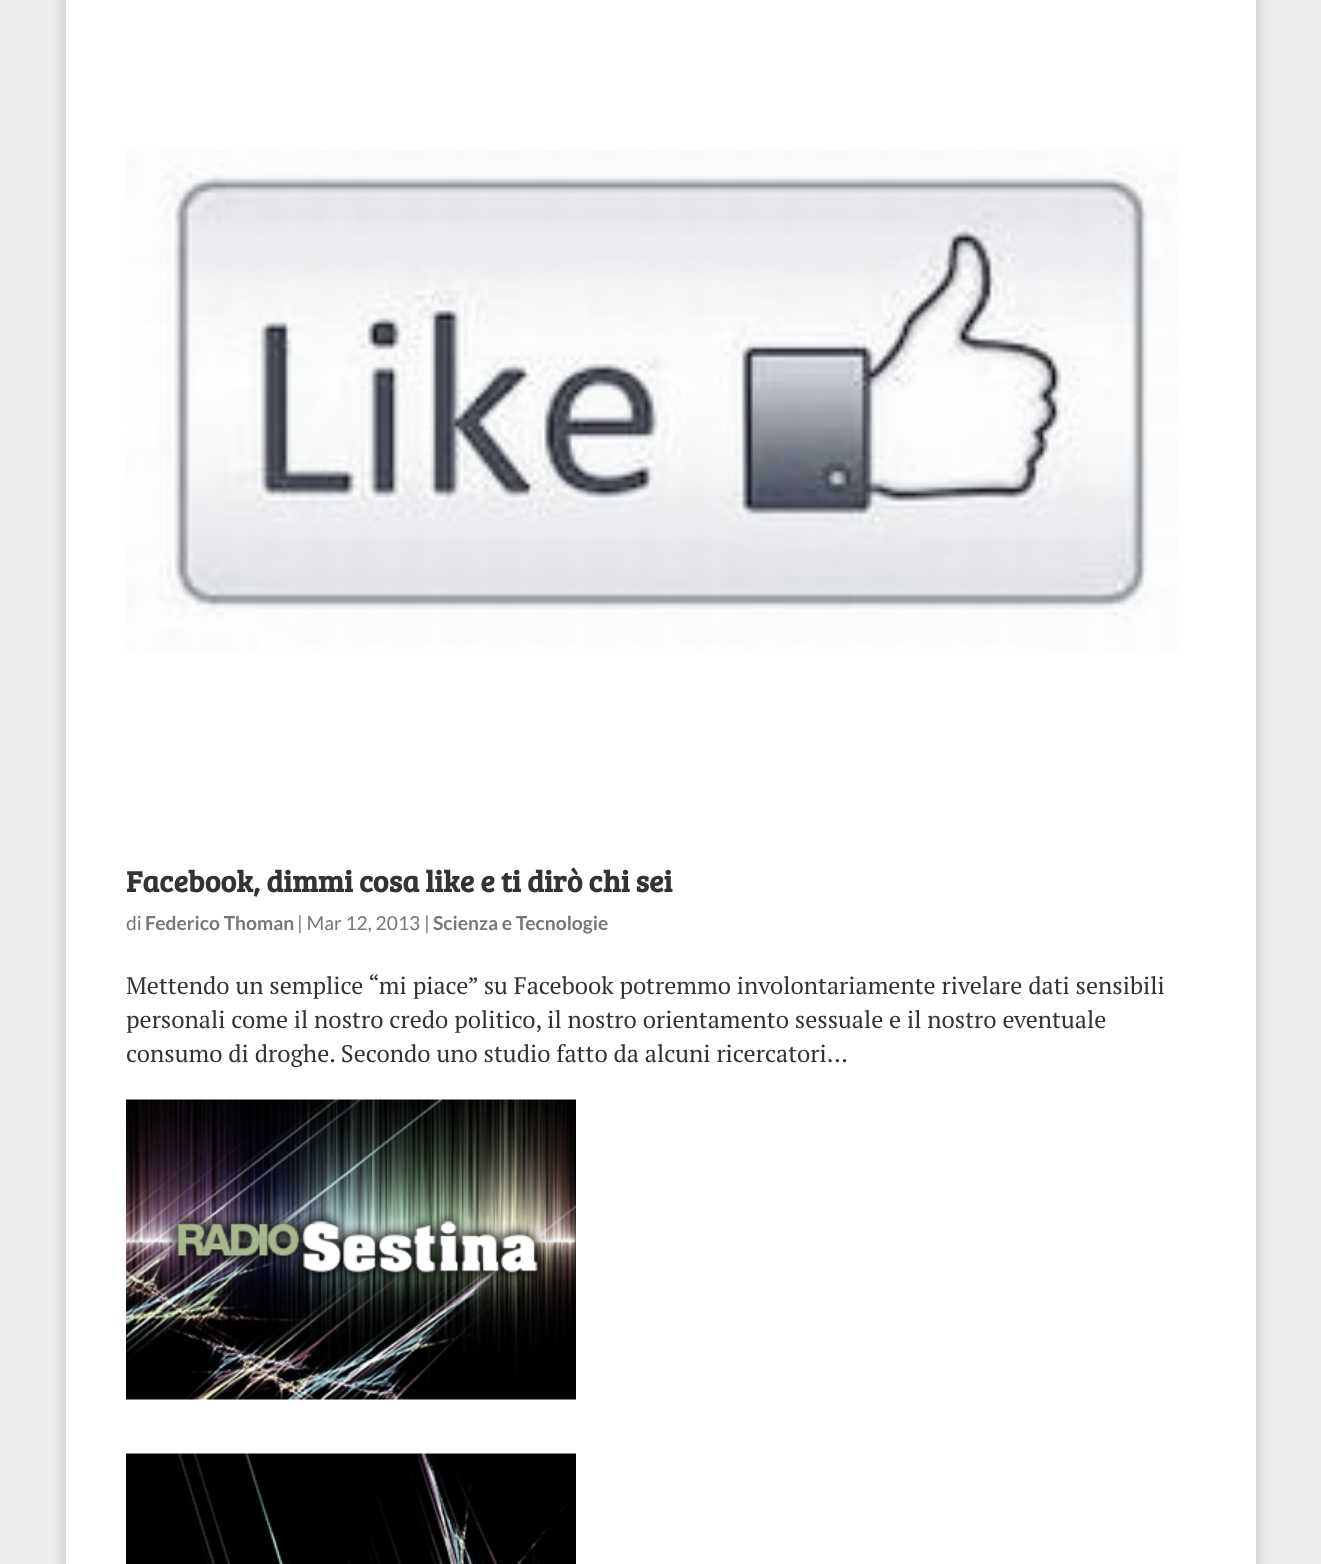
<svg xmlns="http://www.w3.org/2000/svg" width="1321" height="1564">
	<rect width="100%" height="100%" fill="#EDEDED" />
	<rect x="66" y="-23" width="1190" height="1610" fill="#000000" fill-opacity="0.2" filter="blur(7.5px)" />
	<rect x="66" y="0" width="1190" height="1564" fill="#FFFFFF" />
	<image x="126" y="150" width="1052" height="503" href="assets/img1.png" />
	<text x="126" y="892" font-family="Bree Serif" font-size="30" font-weight="700" fill="#333333">Facebook, dimmi cosa like e ti dirò chi sei</text>
	<text x="126" y="930" font-family="Lato" font-size="19.25" fill="#777777">di</text>
	<text x="145" y="930" font-family="Lato" font-size="19.25" font-weight="700" fill="#777777">Federico Thoman</text>
	<text x="297" y="930" font-family="Lato" font-size="19.25" fill="#777777">| Mar 12, 2013 |</text>
	<text x="433" y="930" font-family="Lato" font-size="19.25" font-weight="700" fill="#777777">Scienza e Tecnologie</text>
	<g font-family="PT Serif" font-size="24" fill="#333333">
		<text x="126" y="994">Mettendo un semplice “mi piace” su Facebook potremmo involontariamente rivelare dati sensibili</text>
		<text x="126" y="1028">personali come il nostro credo politico, il nostro orientamento sessuale e il nostro eventuale</text>
		<text x="126" y="1062">consumo di droghe. Secondo uno studio fatto da alcuni ricercatori...</text>
	</g>
	<image x="126" y="1099" width="450" height="301" href="assets/img2.png" />
	<image x="126" y="1453" width="450" height="111" href="assets/img3.png" />
</svg>
